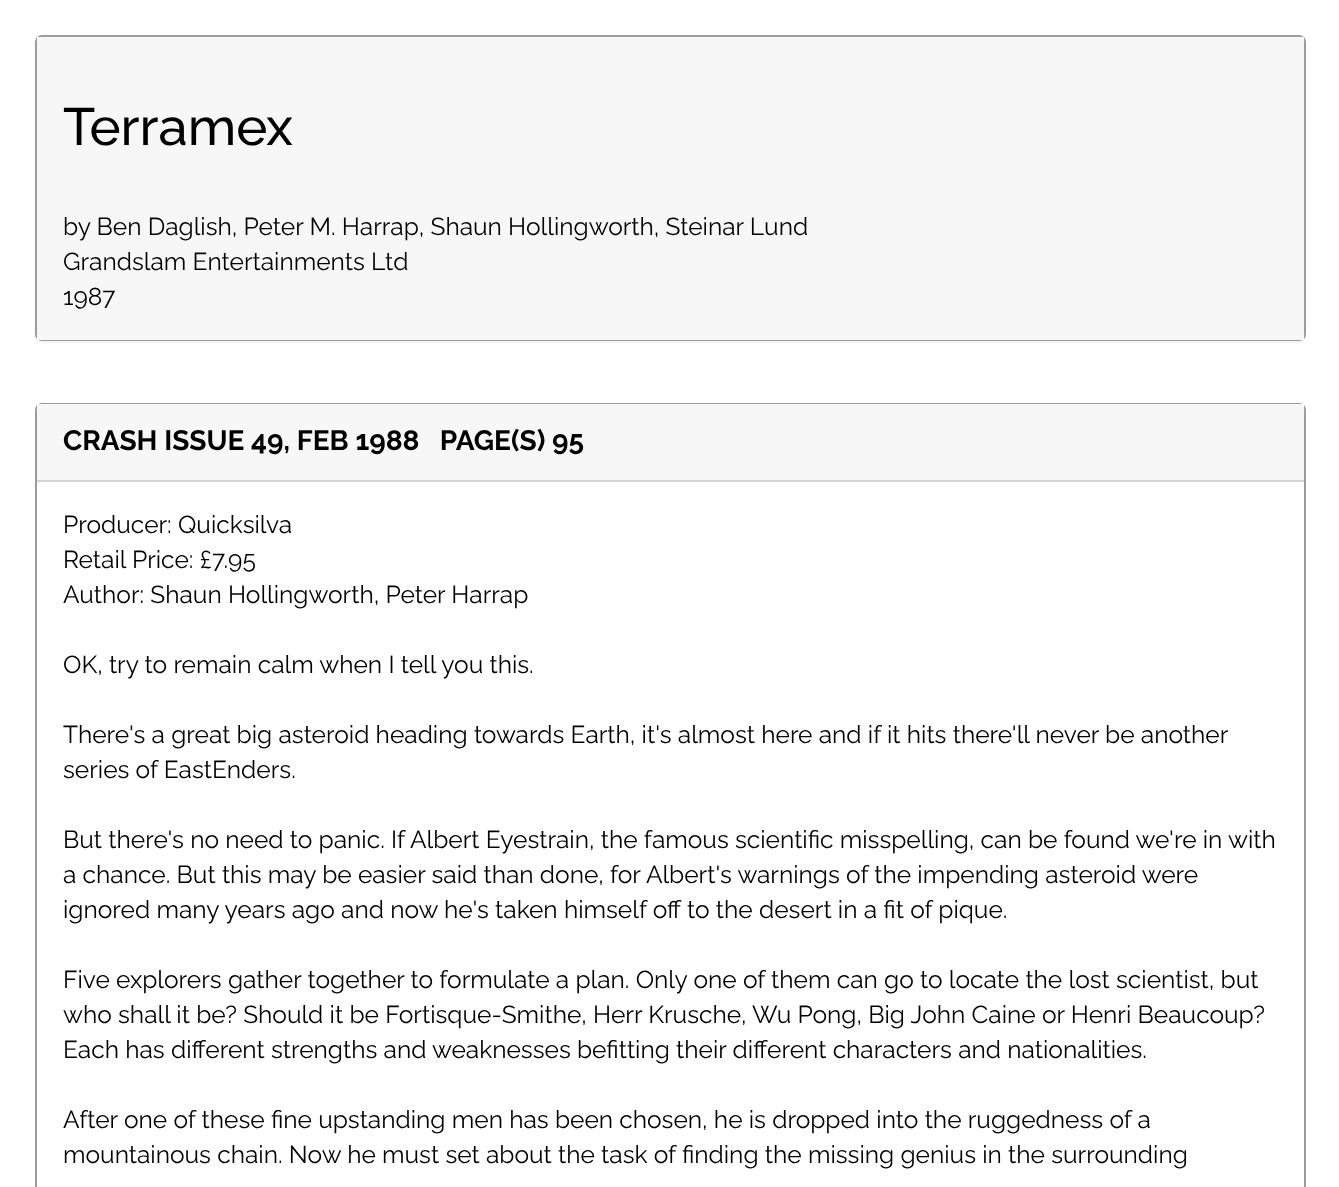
<svg xmlns="http://www.w3.org/2000/svg" width="1339" height="1187">
	<rect width="100%" height="100%" fill="#FFFFFF" />
	<rect x="35" y="37" width="1271" height="306" rx="7" fill="#000000" fill-opacity="0.05" filter="blur(1px)" />
	<rect x="36" y="36" width="1269" height="304" rx="6" fill="none" stroke="#9C9C9C" stroke-width="2" />
	<rect x="37" y="37" width="1267" height="303" fill="#F7F7F7" />
	<text x="63" y="145" font-family="Raleway" font-size="52.5" font-weight="500" fill="#000000">Terramex</text>
	<g font-family="Raleway" font-size="24.5" fill="#000000">
		<text x="63" y="235">by Ben Daglish, Peter M. Harrap, Shaun Hollingworth, Steinar Lund</text>
		<text x="63" y="270">Grandslam Entertainments Ltd</text>
		<text x="63" y="305">1987</text>
	</g>
	<rect x="36" y="404" width="1269" height="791" rx="6" fill="none" stroke="#9C9C9C" stroke-width="2" />
	<rect x="37" y="404" width="1267" height="76" fill="#F7F7F7" />
	<rect x="37" y="480" width="1267" height="2" fill="#D4D4D4" />
	<text x="63" y="450" font-family="Raleway" font-size="28" font-weight="700" fill="#000000" xml:space="preserve">CRASH ISSUE 49, FEB 1988   PAGE(S) 95</text>
	<g font-family="Raleway" font-size="24.5" fill="#000000">
		<text x="63" y="533">Producer: Quicksilva</text>
		<text x="63" y="568">Retail Price: £7.95</text>
		<text x="63" y="603">Author: Shaun Hollingworth, Peter Harrap</text>
		<text x="63" y="673">OK, try to remain calm when I tell you this.</text>
		<text x="63" y="743">There's a great big asteroid heading towards Earth, it's almost here and if it hits there'll never be another</text>
		<text x="63" y="778">series of EastEnders.</text>
		<text x="63" y="848">But there's no need to panic. If Albert Eyestrain, the famous scientific misspelling, can be found we're in with</text>
		<text x="63" y="883">a chance. But this may be easier said than done, for Albert's warnings of the impending asteroid were</text>
		<text x="63" y="918">ignored many years ago and now he's taken himself off to the desert in a fit of pique.</text>
		<text x="63" y="988">Five explorers gather together to formulate a plan. Only one of them can go to locate the lost scientist, but</text>
		<text x="63" y="1023">who shall it be? Should it be Fortisque-Smithe, Herr Krusche, Wu Pong, Big John Caine or Henri Beaucoup?</text>
		<text x="63" y="1058">Each has different strengths and weaknesses befitting their different characters and nationalities.</text>
		<text x="63" y="1128">After one of these fine upstanding men has been chosen, he is dropped into the ruggedness of a</text>
		<text x="63" y="1163">mountainous chain. Now he must set about the task of finding the missing genius in the surrounding</text>
	</g>
</svg>
